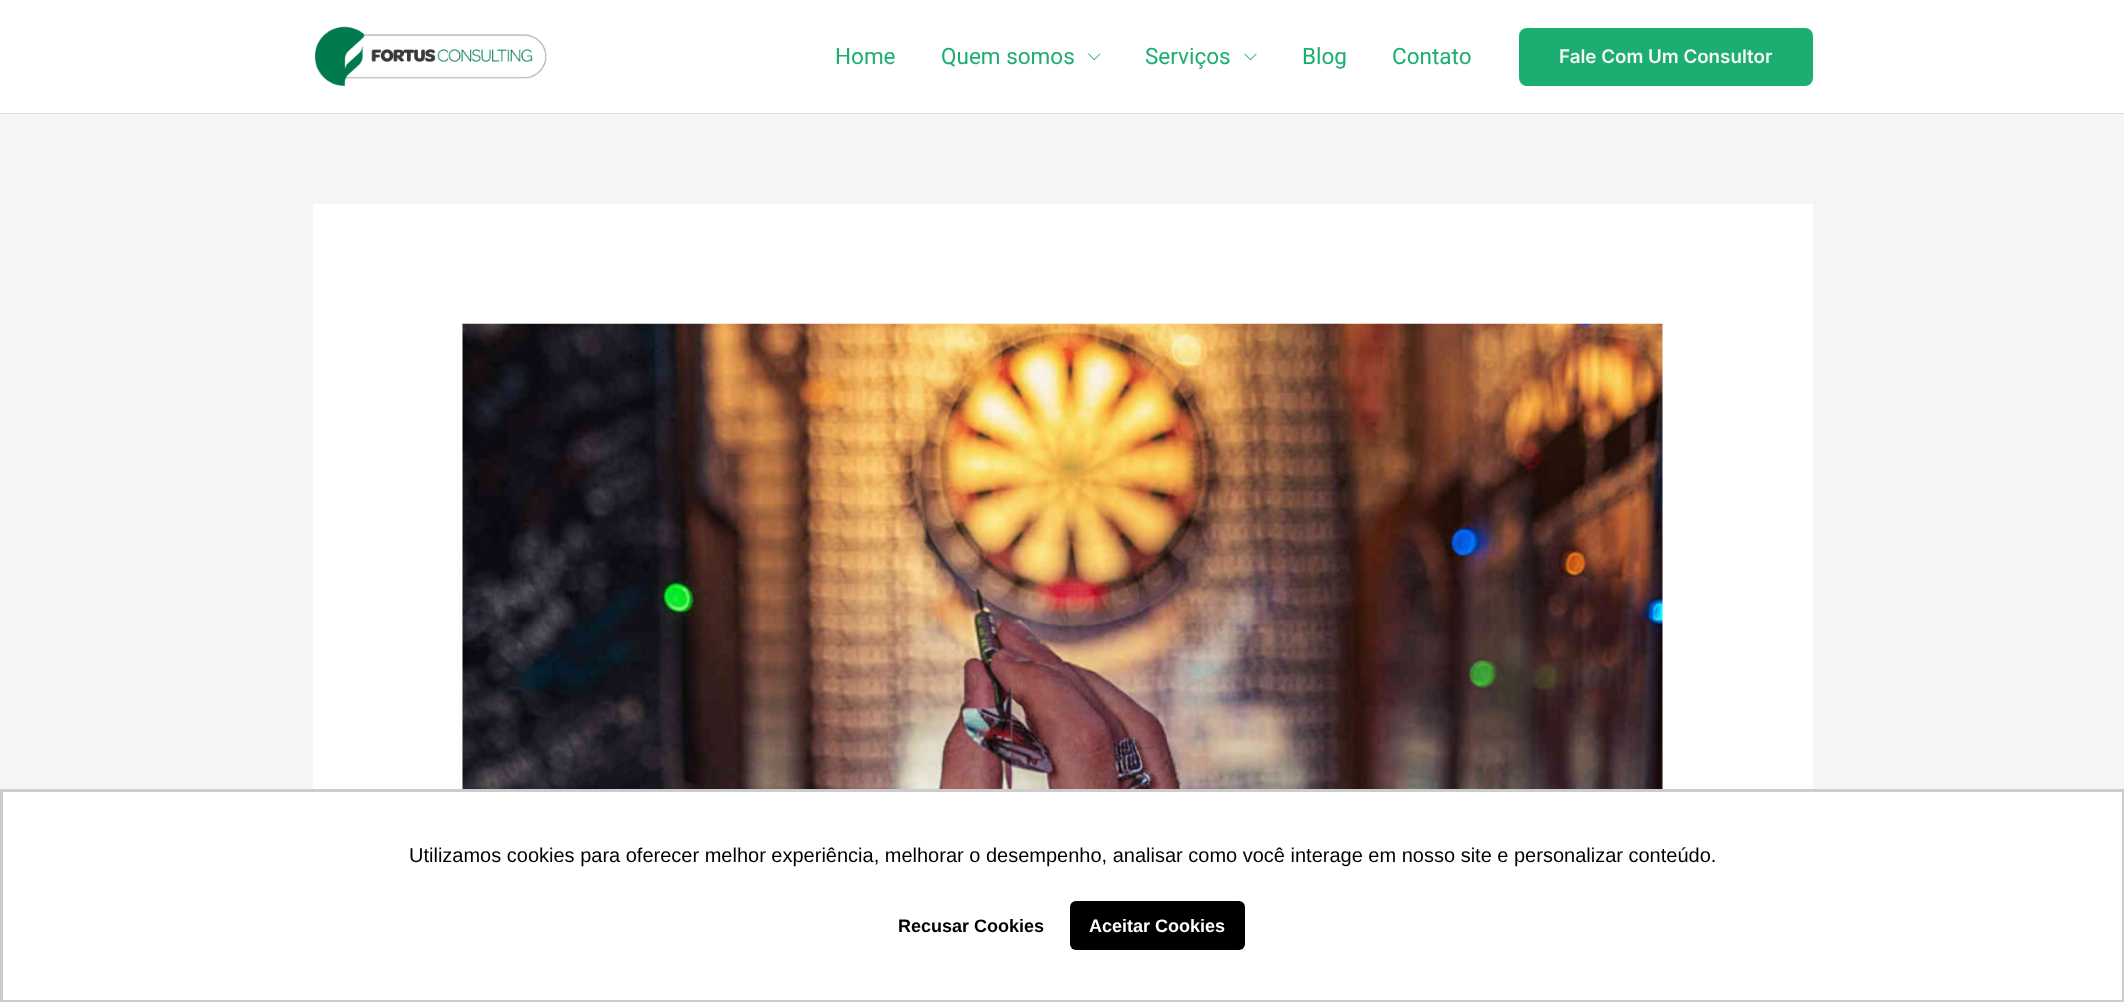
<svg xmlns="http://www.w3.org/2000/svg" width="2124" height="1002">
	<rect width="100%" height="100%" fill="#F4F6F4" />
	<rect x="0" y="0" width="2124" height="113" fill="#FFFFFF" />
	<rect x="0" y="113" width="2124" height="1" fill="#DDDDDD" />
	<image x="315" y="26" width="232" height="60" href="assets/img1.png" />
	<g font-family="Roboto" font-size="22.5" fill="#1BAE70">
		<text x="835" y="64">Home</text>
		<text x="941" y="64">Quem somos</text>
	</g>
	<image x="1088" y="53" width="13" height="8" href="assets/img2.png" />
	<text x="1145" y="64" font-family="Roboto" font-size="22.5" fill="#1BAE70">Serviços</text>
	<image x="1244" y="53" width="13" height="8" href="assets/img3.png" />
	<g font-family="Roboto" font-size="22.5" fill="#1BAE70">
		<text x="1302" y="64">Blog</text>
		<text x="1392" y="64">Contato</text>
	</g>
	<rect x="1519" y="28" width="294" height="58" rx="8" fill="#1BAE70" />
	<text x="1559" y="63" font-family="Inter" font-size="18.75" font-weight="600" fill="#F4F6F4">Fale Com Um Consultor</text>
	<rect x="313" y="204" width="1500" height="585" fill="#FFFFFF" />
	<image x="462" y="323" width="1201" height="466" href="assets/img4.png" />
	<rect x="1.5" y="790.5" width="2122" height="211" fill="#FFFFFF" stroke="#CCCCCC" stroke-width="3" />
	<text x="409" y="862" font-family="Liberation Sans" font-size="20" fill="#000000">Utilizamos cookies para oferecer melhor experiência, melhorar o desempenho, analisar como você interage em nosso site e personalizar conteúdo.</text>
	<text x="898" y="932" font-family="Liberation Sans" font-size="18" font-weight="700" fill="#000000">Recusar Cookies</text>
	<rect x="1070" y="901" width="175" height="49" rx="6" fill="#000000" />
	<text x="1089" y="932" font-family="Liberation Sans" font-size="18" font-weight="700" fill="#FFFFFF">Aceitar Cookies</text>
</svg>
